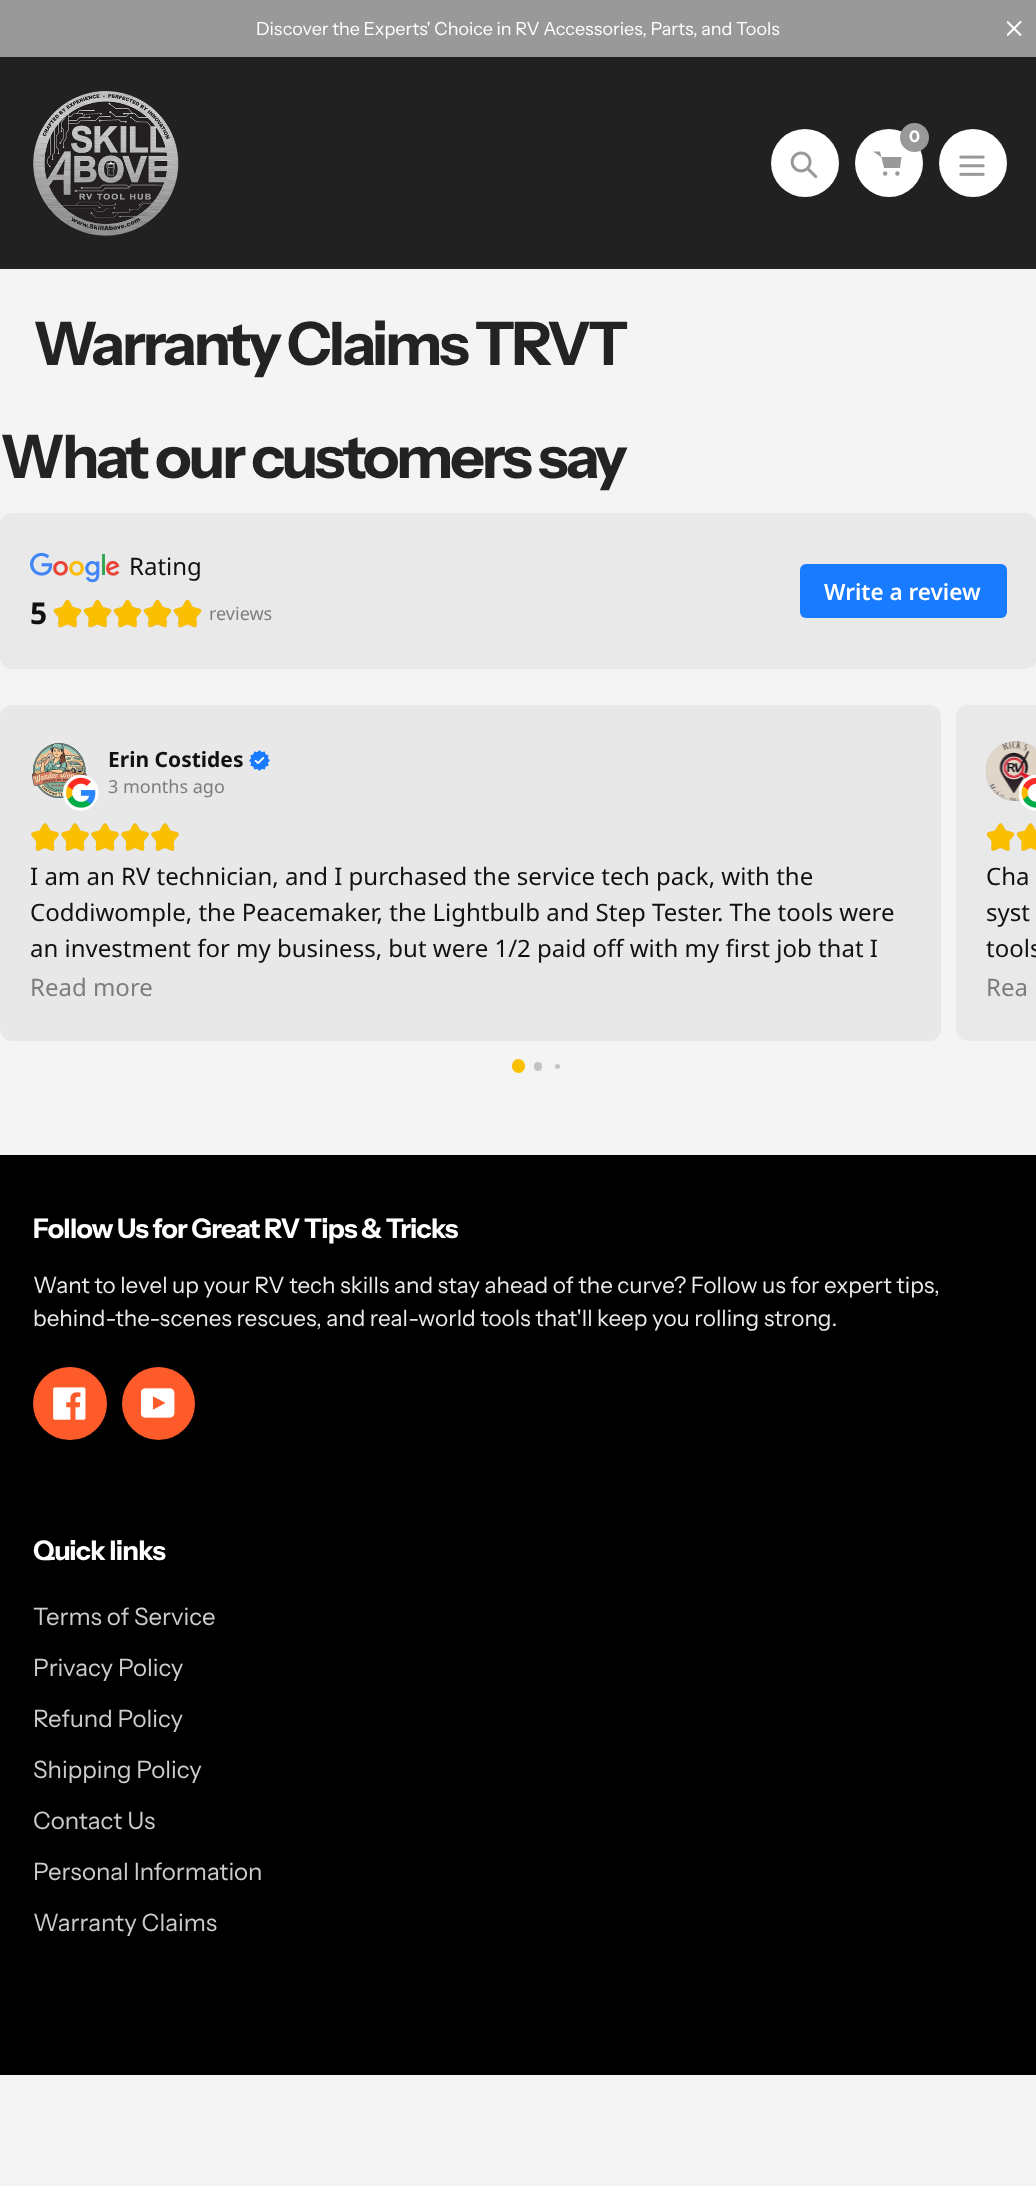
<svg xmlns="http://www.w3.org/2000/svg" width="1036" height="2186">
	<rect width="100%" height="100%" fill="#F4F4F4" />
	<rect x="0" y="0" width="1036" height="57" fill="#999999" />
	<text x="256" y="35" font-family="Instrument Sans" font-size="18" fill="#FFFFFF">Discover the Experts' Choice in RV Accessories, Parts, and Tools</text>
	<image x="1007" y="21" width="15" height="15" href="assets/img1.png" />
	<rect x="0" y="57" width="1036" height="212" fill="#212121" />
	<image x="33" y="91" width="146" height="145" href="assets/img2.png" />
	<circle cx="805" cy="163" r="34" fill="#FFFFFF" />
	<image x="790" y="151" width="28" height="28" href="assets/img3.png" />
	<circle cx="889" cy="163" r="34" fill="#FFFFFF" />
	<path d="M881 157H901.5L900 168H884L880 151.5H873" fill="#999999" fill-rule="evenodd" />
	<circle cx="914.5" cy="137.5" r="14.5" fill="#999999" />
	<text x="909" y="142" font-family="Instrument Sans" font-size="16" font-weight="700" fill="#FFFFFF">0</text>
	<circle cx="885.2" cy="173.5" r="2.2" fill="#999999" />
	<circle cx="897.4" cy="173.5" r="2.2" fill="#999999" />
	<circle cx="973" cy="163" r="34" fill="#FFFFFF" />
	<image x="959" y="155" width="26" height="21" href="assets/img4.png" />
	<g font-family="Instrument Sans" font-size="60" font-weight="700" letter-spacing="-3" fill="#232323">
		<text x="33" y="365">Warranty Claims TRVT</text>
		<text x="0" y="478">What our customers say</text>
	</g>
	<rect x="0" y="513" width="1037" height="156" rx="12" fill="#E9E9E9" />
	<image x="30" y="552" width="90" height="31" href="assets/img5.png" />
	<text x="129" y="575" font-family="Noto Sans" font-size="24" fill="#111111">Rating</text>
	<text x="30" y="624" font-family="Noto Sans" font-size="30" font-weight="700" fill="#111111">5</text>
	<image x="53" y="599" width="29" height="29" href="assets/img6.png" />
	<image x="83" y="599" width="29" height="29" href="assets/img6.png" />
	<image x="113" y="599" width="29" height="29" href="assets/img6.png" />
	<image x="143" y="599" width="29" height="29" href="assets/img6.png" />
	<image x="173" y="599" width="29" height="29" href="assets/img6.png" />
	<image x="53" y="599" width="29" height="29" href="assets/img7.png" />
	<image x="83" y="599" width="29" height="29" href="assets/img7.png" />
	<image x="113" y="599" width="29" height="29" href="assets/img7.png" />
	<image x="143" y="599" width="29" height="29" href="assets/img7.png" />
	<image x="173" y="599" width="29" height="29" href="assets/img7.png" />
	<text x="209" y="620" font-family="Noto Sans" font-size="18" fill="#7D7D7D">reviews</text>
	<rect x="800" y="564" width="207" height="54" rx="6" fill="#197BFF" />
	<text x="824" y="600" font-family="Noto Sans" font-size="22.5" font-weight="600" fill="#FFFFFF">Write a review</text>
	<rect x="0" y="705" width="941" height="336" rx="12" fill="#E8E8E8" />
	<image x="31" y="742" width="56" height="56" href="assets/img8.png" />
	<image x="63" y="774" width="36" height="37" href="assets/img9.png" />
	<text x="108" y="767" font-family="Noto Sans" font-size="21" font-weight="700" fill="#111111">Erin Costides</text>
	<image x="249" y="750" width="21" height="21" href="assets/img10.png" />
	<text x="108" y="793" font-family="Noto Sans" font-size="18" fill="#7D7D7D">3 months ago</text>
	<image x="31" y="823" width="28" height="28" href="assets/img11.png" />
	<image x="61" y="823" width="28" height="28" href="assets/img11.png" />
	<image x="91" y="823" width="28" height="28" href="assets/img11.png" />
	<image x="121" y="823" width="28" height="28" href="assets/img11.png" />
	<image x="151" y="823" width="28" height="28" href="assets/img11.png" />
	<image x="31" y="823" width="28" height="28" href="assets/img12.png" />
	<image x="61" y="823" width="28" height="28" href="assets/img12.png" />
	<image x="91" y="823" width="28" height="28" href="assets/img12.png" />
	<image x="121" y="823" width="28" height="28" href="assets/img12.png" />
	<image x="151" y="823" width="28" height="28" href="assets/img12.png" />
	<g font-family="Noto Sans" font-size="24" fill="#111111">
		<text x="30" y="885">I am an RV technician, and I purchased the service tech pack, with the</text>
		<text x="30" y="921">Coddiwomple, the Peacemaker, the Lightbulb and Step Tester. The tools were</text>
		<text x="30" y="957">an investment for my business, but were 1/2 paid off with my first job that I</text>
	</g>
	<text x="30" y="996" font-family="Noto Sans" font-size="24" fill="#7D7D7D">Read more</text>
	<path d="M968 705H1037V1041H968C961.5 1041 956 1035.5 956 1029V717C956 710.5 961.5 705 968 705Z" fill="#E9E9E9" />
	<image x="986" y="741" width="50" height="60" href="assets/img13.png" />
	<image x="1019" y="775" width="17" height="36" href="assets/img14.png" />
	<image x="986" y="823" width="29" height="28" href="assets/img15.png" />
	<image x="1016" y="823" width="20" height="28" href="assets/img16.png" />
	<image x="986" y="823" width="29" height="28" href="assets/img17.png" />
	<image x="1016" y="823" width="20" height="28" href="assets/img18.png" />
	<g font-family="Noto Sans" font-size="24" fill="#111111">
		<text x="986" y="885">Cha</text>
		<text x="986" y="921">syst</text>
		<text x="986" y="957">tools</text>
	</g>
	<text x="986" y="996" font-family="Noto Sans" font-size="24" fill="#7D7D7D">Rea</text>
	<rect x="512" y="1059" width="13" height="14" rx="6.5" fill="#FABF00" />
	<rect x="534" y="1062" width="8" height="9" rx="4" fill="#C3C3C3" />
	<circle cx="557.5" cy="1066.5" r="2.5" fill="#C3C3C3" />
	<rect x="0" y="1155" width="1036" height="920" fill="#000000" />
	<text x="33" y="1238" font-family="Instrument Sans" font-size="27" font-weight="700" letter-spacing="-0.75" fill="#FFFFFF">Follow Us for Great RV Tips &amp; Tricks</text>
	<g font-family="Instrument Sans" font-size="22.5" fill="#EBEBEB">
		<text x="33" y="1293">Want to level up your RV tech skills and stay ahead of the curve? Follow us for expert tips,</text>
		<text x="33" y="1326">behind-the-scenes rescues, and real-world tools that'll keep you rolling strong.</text>
	</g>
	<rect x="33" y="1367" width="74" height="73" rx="36.5" fill="#FD5B2A" />
	<image x="53" y="1387" width="33" height="33" href="assets/img19.png" />
	<circle cx="158.5" cy="1403.5" r="36.5" fill="#FD5B2A" />
	<image x="141" y="1388" width="34" height="30" href="assets/img20.png" />
	<text x="33" y="1560" font-family="Instrument Sans" font-size="27" font-weight="700" letter-spacing="-0.75" fill="#FFFFFF">Quick links</text>
	<g font-family="Instrument Sans" font-size="24" fill="#CCCCCC">
		<text x="33" y="1625">Terms of Service</text>
		<text x="33" y="1676">Privacy Policy</text>
		<text x="33" y="1727">Refund Policy</text>
		<text x="33" y="1778">Shipping Policy</text>
		<text x="33" y="1829">Contact Us</text>
		<text x="33" y="1880">Personal Information</text>
		<text x="33" y="1931">Warranty Claims</text>
	</g>
</svg>
